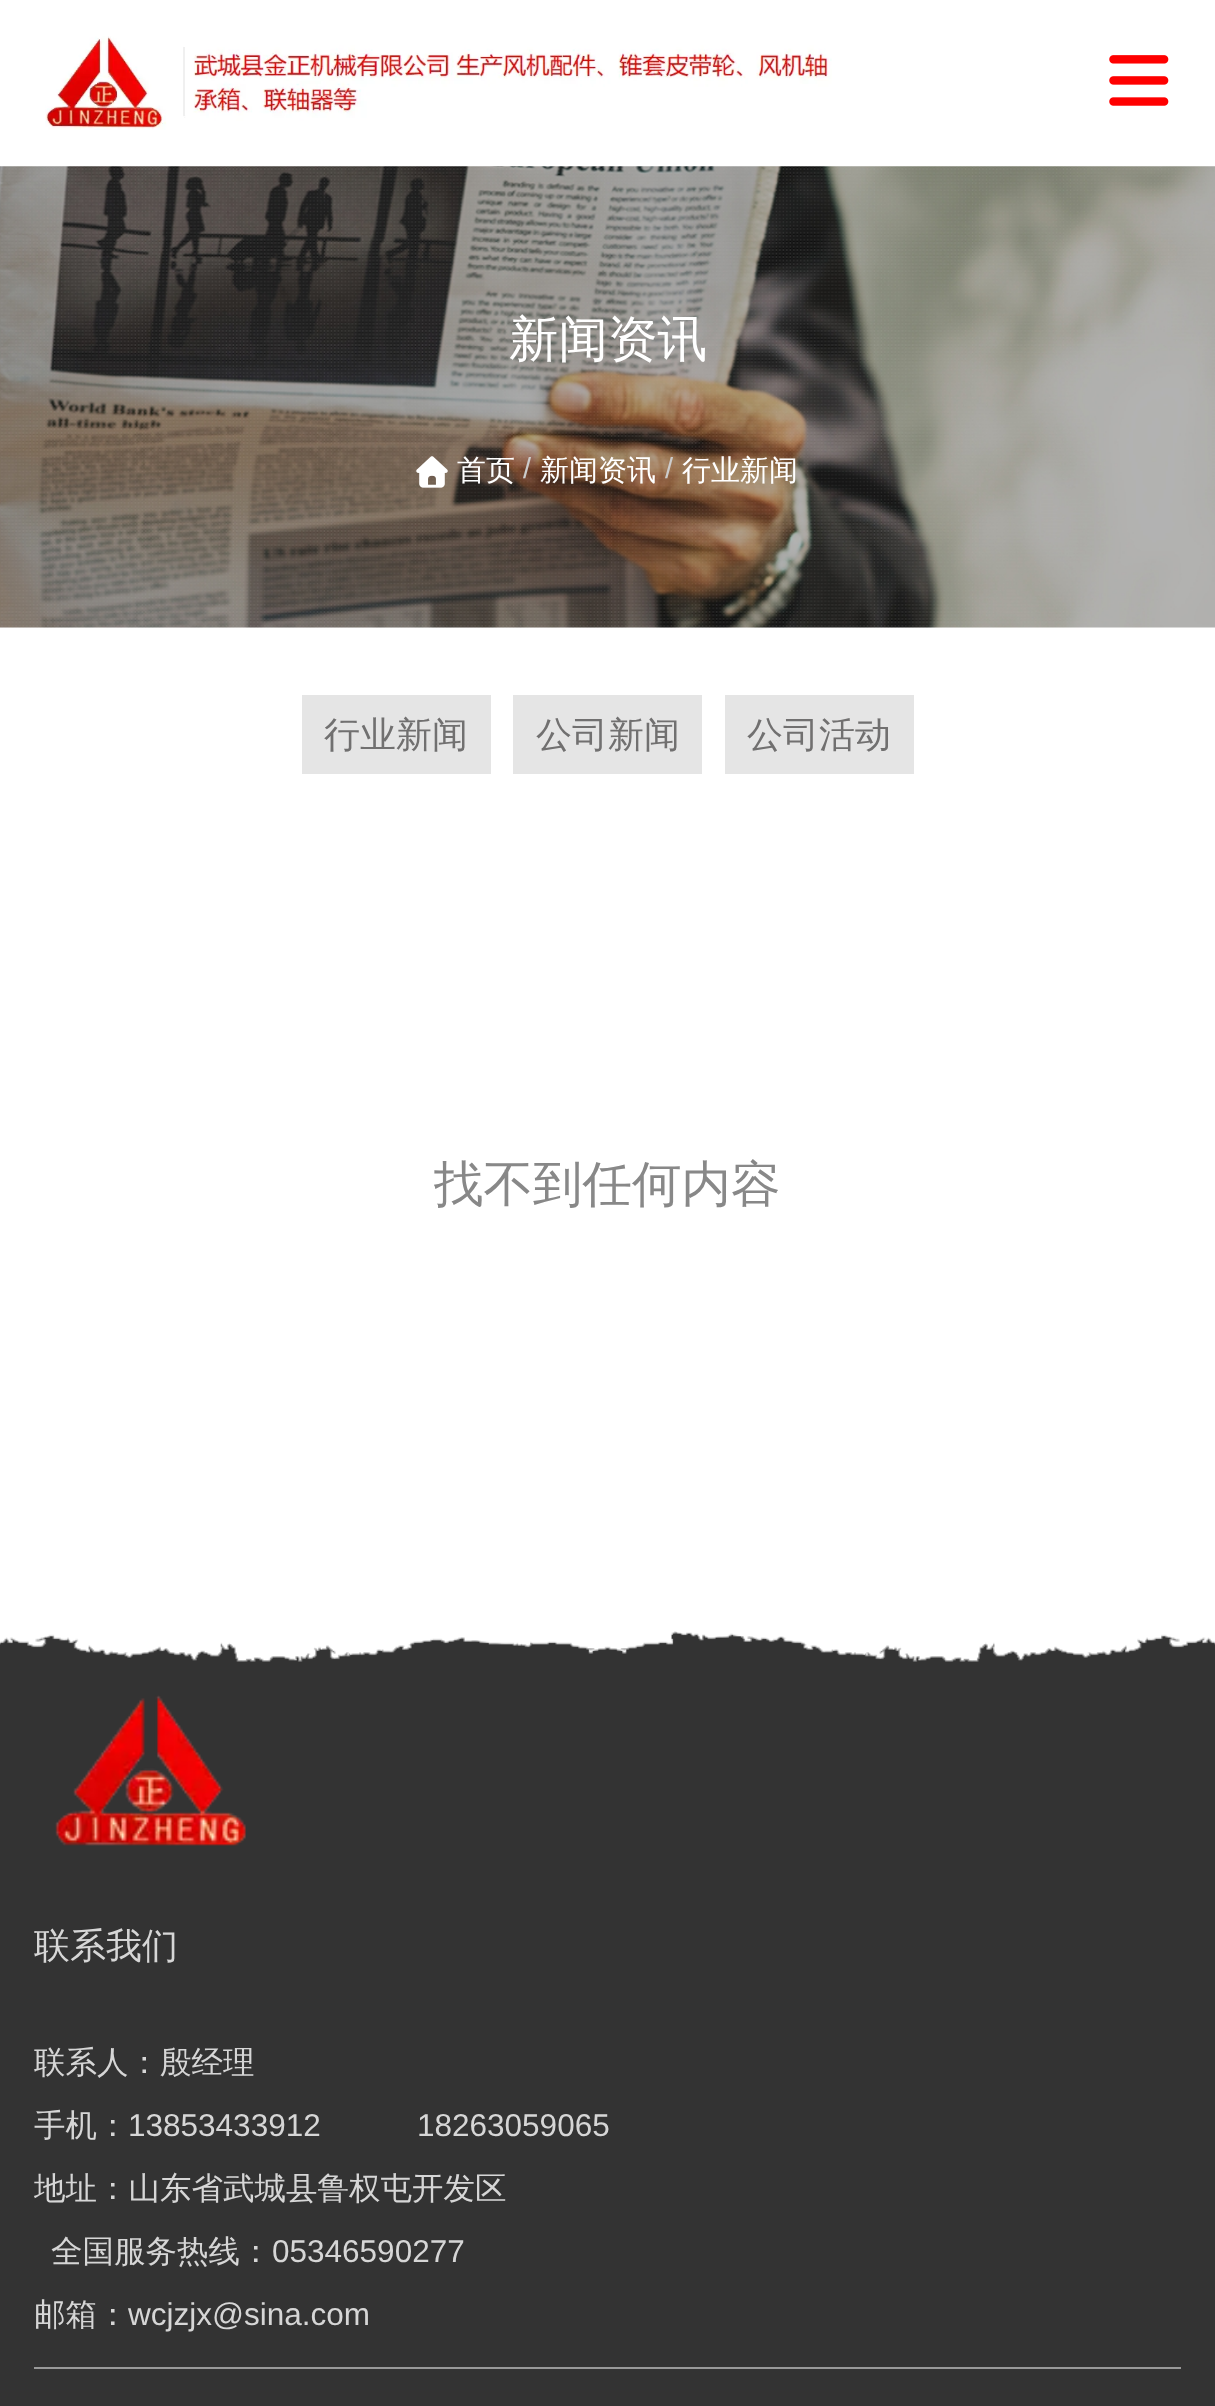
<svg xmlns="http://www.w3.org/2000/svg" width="1215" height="2406">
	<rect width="100%" height="100%" fill="#FFFFFF" />
	<image x="45" y="36" width="787" height="94" href="assets/img1.png" />
	<image x="1109" y="55" width="60" height="51" href="assets/img2.png" />
	<image x="0" y="166" width="1215" height="462" href="assets/img3.png" />
	<text x="509" y="356" font-family="WenQuanYi Zen Hei" font-size="49.5" font-weight="500" fill="#FFFFFF">新闻资讯</text>
	<image x="416" y="456" width="32" height="32" href="assets/img4.png" />
	<text x="457" y="480" font-family="WenQuanYi Zen Hei" font-size="29" font-weight="500" fill="#FFFFFF">首页</text>
	<text x="523" y="478" font-family="Liberation Sans" font-size="29" fill="#CCCCCC">/</text>
	<text x="540" y="480" font-family="WenQuanYi Zen Hei" font-size="29" font-weight="500" fill="#FFFFFF">新闻资讯</text>
	<text x="665" y="478" font-family="Liberation Sans" font-size="29" fill="#CCCCCC">/</text>
	<text x="682" y="480" font-family="WenQuanYi Zen Hei" font-size="29" font-weight="500" fill="#FFFFFF">行业新闻</text>
	<rect x="302" y="695" width="189" height="79" fill="#E5E5E5" />
	<text x="324" y="747" font-family="WenQuanYi Zen Hei" font-size="36" font-weight="500" fill="#717070">行业新闻</text>
	<rect x="513" y="695" width="189" height="79" fill="#E5E5E5" />
	<text x="536" y="747" font-family="WenQuanYi Zen Hei" font-size="36" font-weight="500" fill="#717070">公司新闻</text>
	<rect x="725" y="695" width="189" height="79" fill="#E5E5E5" />
	<text x="747" y="747" font-family="WenQuanYi Zen Hei" font-size="36" font-weight="500" fill="#717070">公司活动</text>
	<text x="434" y="1201" font-family="WenQuanYi Zen Hei" font-size="49.5" font-weight="500" fill="#888888">找不到任何内容</text>
	<image x="0" y="1631" width="1215" height="775" href="assets/img5.png" />
	<image x="55" y="1695" width="191" height="151" href="assets/img6.png" />
	<text x="34" y="1958" font-family="WenQuanYi Zen Hei" font-size="36" font-weight="500" fill="#D6D6D6">联系我们</text>
	<g font-family="WenQuanYi Zen Hei" font-size="31.5" font-weight="500" fill="#D6D6D6">
		<text x="34" y="2073">联系人：殷经理</text>
		<text x="34" y="2136">手机：</text>
	</g>
	<text x="128" y="2136" font-family="Liberation Sans" font-size="31.5" fill="#D6D6D6" xml:space="preserve">13853433912           18263059065</text>
	<g font-family="WenQuanYi Zen Hei" font-size="31.5" font-weight="500" fill="#D6D6D6">
		<text x="34" y="2199">地址：山东省武城县鲁权屯开发区</text>
		<text x="51" y="2262">全国服务热线：</text>
	</g>
	<text x="272" y="2262" font-family="Liberation Sans" font-size="31.5" fill="#D6D6D6">05346590277</text>
	<text x="34" y="2325" font-family="WenQuanYi Zen Hei" font-size="31.5" font-weight="500" fill="#D6D6D6">邮箱：</text>
	<text x="128" y="2325" font-family="Liberation Sans" font-size="31.5" fill="#D6D6D6">wcjzjx@sina.com</text>
	<rect x="34" y="2367" width="1147" height="2" fill="#999999" />
</svg>
